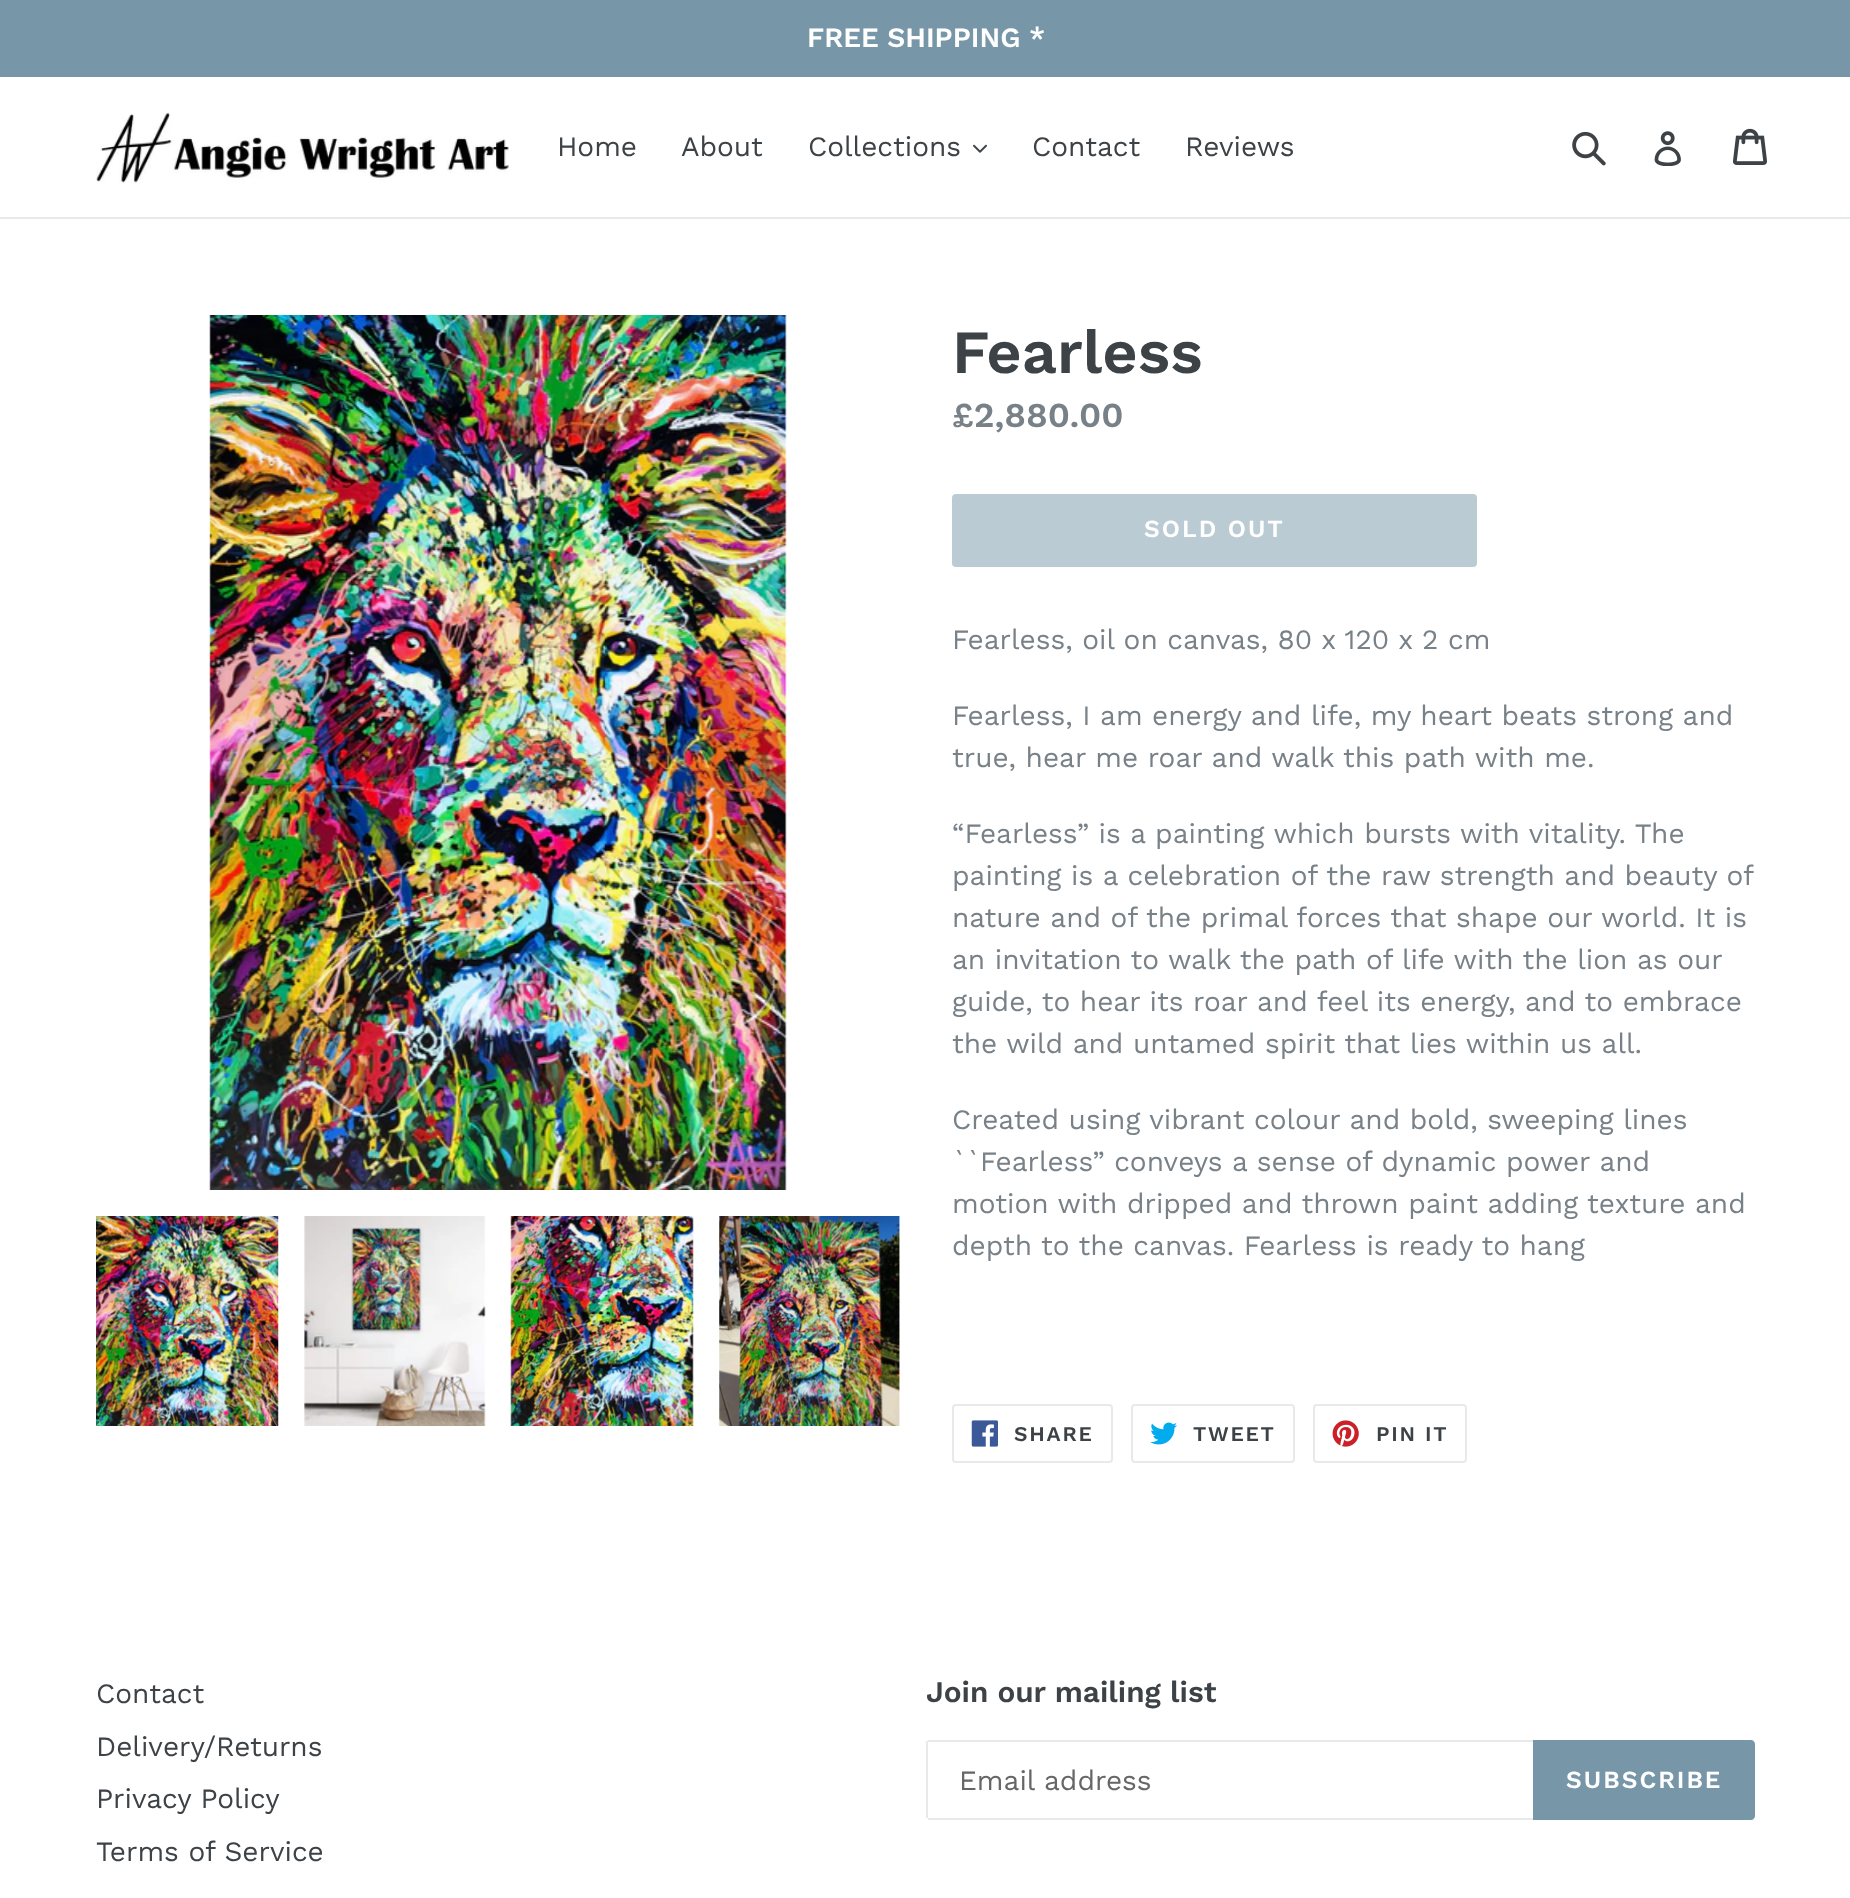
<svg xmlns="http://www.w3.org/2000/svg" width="1850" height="1898">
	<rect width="100%" height="100%" fill="#FFFFFF" />
	<rect x="0" y="0" width="1850" height="77" fill="#7796A8" />
	<text x="807" y="47" font-family="Work Sans" font-size="28" font-weight="600" fill="#FFFFFF">FREE SHIPPING *</text>
	<rect x="0" y="217" width="1850" height="2" fill="#E8E9EB" />
	<image x="96" y="112" width="413" height="71" href="assets/img1.png" />
	<g font-family="Work Sans" font-size="28" fill="#3D4246">
		<text x="557" y="156">Home</text>
		<text x="681" y="156">About</text>
		<text x="808" y="156">Collections</text>
	</g>
	<image x="973" y="144" width="14" height="9" href="assets/img2.png" />
	<g font-family="Work Sans" font-size="28" fill="#3D4246">
		<text x="1032" y="156">Contact</text>
		<text x="1185" y="156">Reviews</text>
	</g>
	<image x="1572" y="131" width="34" height="35" href="assets/img3.png" />
	<image x="1654" y="131" width="27" height="35" href="assets/img4.png" />
	<image x="1733" y="128" width="34" height="37" href="assets/img5.png" />
	<image x="209" y="315" width="578" height="875" href="assets/img6.png" />
	<image x="96" y="1216" width="183" height="210" href="assets/img7.png" />
	<image x="304" y="1216" width="182" height="210" href="assets/img8.png" />
	<image x="510" y="1216" width="184" height="210" href="assets/img9.png" />
	<image x="719" y="1216" width="181" height="210" href="assets/img10.png" />
	<text x="952" y="373" font-family="Work Sans" font-size="61.25" font-weight="600" fill="#3D4246">Fearless</text>
	<text x="952" y="427" font-family="Work Sans" font-size="35" font-weight="600" fill="#788188">£2,880.00</text>
	<rect x="952" y="494" width="525" height="73" rx="4" fill="#BBCBD4" />
	<text x="1144" y="537" font-family="Work Sans" font-size="24.5" font-weight="600" letter-spacing="2" fill="#FFFFFF">SOLD OUT</text>
	<g font-family="Work Sans" font-size="28" fill="#788188">
		<text x="952" y="649">Fearless, oil on canvas, 80 x 120 x 2 cm</text>
		<text x="952" y="725">Fearless, I am energy and life, my heart beats strong and</text>
		<text x="952" y="767">true, hear me roar and walk this path with me.</text>
		<text x="952" y="843">“Fearless” is a painting which bursts with vitality. The</text>
		<text x="952" y="885">painting is a celebration of the raw strength and beauty of</text>
		<text x="952" y="927">nature and of the primal forces that shape our world. It is</text>
		<text x="952" y="969">an invitation to walk the path of life with the lion as our</text>
		<text x="952" y="1011">guide, to hear its roar and feel its energy, and to embrace</text>
		<text x="952" y="1053">the wild and untamed spirit that lies within us all.</text>
		<text x="952" y="1129">Created using vibrant colour and bold, sweeping lines</text>
		<text x="952" y="1171">``Fearless” conveys a sense of dynamic power and</text>
		<text x="952" y="1213">motion with dripped and thrown paint adding texture and</text>
		<text x="952" y="1255">depth to the canvas. Fearless is ready to hang</text>
	</g>
	<rect x="953" y="1405" width="159" height="57" rx="3" fill="none" stroke="#E8E9EB" stroke-width="2" />
	<image x="971" y="1420" width="27" height="27" href="assets/img11.png" />
	<text x="1014" y="1441" font-family="Work Sans" font-size="21" font-weight="600" letter-spacing="1.75" fill="#3D4246">SHARE</text>
	<rect x="1132" y="1405" width="162" height="57" rx="3" fill="none" stroke="#E8E9EB" stroke-width="2" />
	<image x="1150" y="1422" width="27" height="23" href="assets/img12.png" />
	<text x="1193" y="1441" font-family="Work Sans" font-size="21" font-weight="600" letter-spacing="1.75" fill="#3D4246">TWEET</text>
	<rect x="1314" y="1405" width="152" height="57" rx="3" fill="none" stroke="#E8E9EB" stroke-width="2" />
	<image x="1332" y="1420" width="27" height="27" href="assets/img13.png" />
	<text x="1376" y="1441" font-family="Work Sans" font-size="21" font-weight="600" letter-spacing="1.75" fill="#3D4246">PIN IT</text>
	<g font-family="Work Sans" font-size="28" fill="#3D4246">
		<text x="96" y="1703">Contact</text>
		<text x="96" y="1756">Delivery/Returns</text>
		<text x="96" y="1808">Privacy Policy</text>
		<text x="96" y="1861">Terms of Service</text>
	</g>
	<text x="926" y="1702" font-family="Work Sans" font-size="29.75" font-weight="600" fill="#3D4246">Join our mailing list</text>
	<rect x="928" y="1740" width="605" height="2" fill="#E8E9EB" />
	<rect x="928" y="1818" width="605" height="2" fill="#E8E9EB" />
	<rect x="926" y="1741" width="2" height="77" fill="#E8E9EB" />
	<text x="959" y="1790" font-family="Work Sans" font-size="28" fill="#666666">Email address</text>
	<path d="M1533 1740H1751C1753 1740 1755 1742 1755 1744V1816C1755 1818 1753 1820 1751 1820H1533Z" fill="#7796A8" />
	<text x="1566" y="1788" font-family="Work Sans" font-size="24.5" font-weight="600" letter-spacing="2" fill="#FFFFFF">SUBSCRIBE</text>
</svg>
